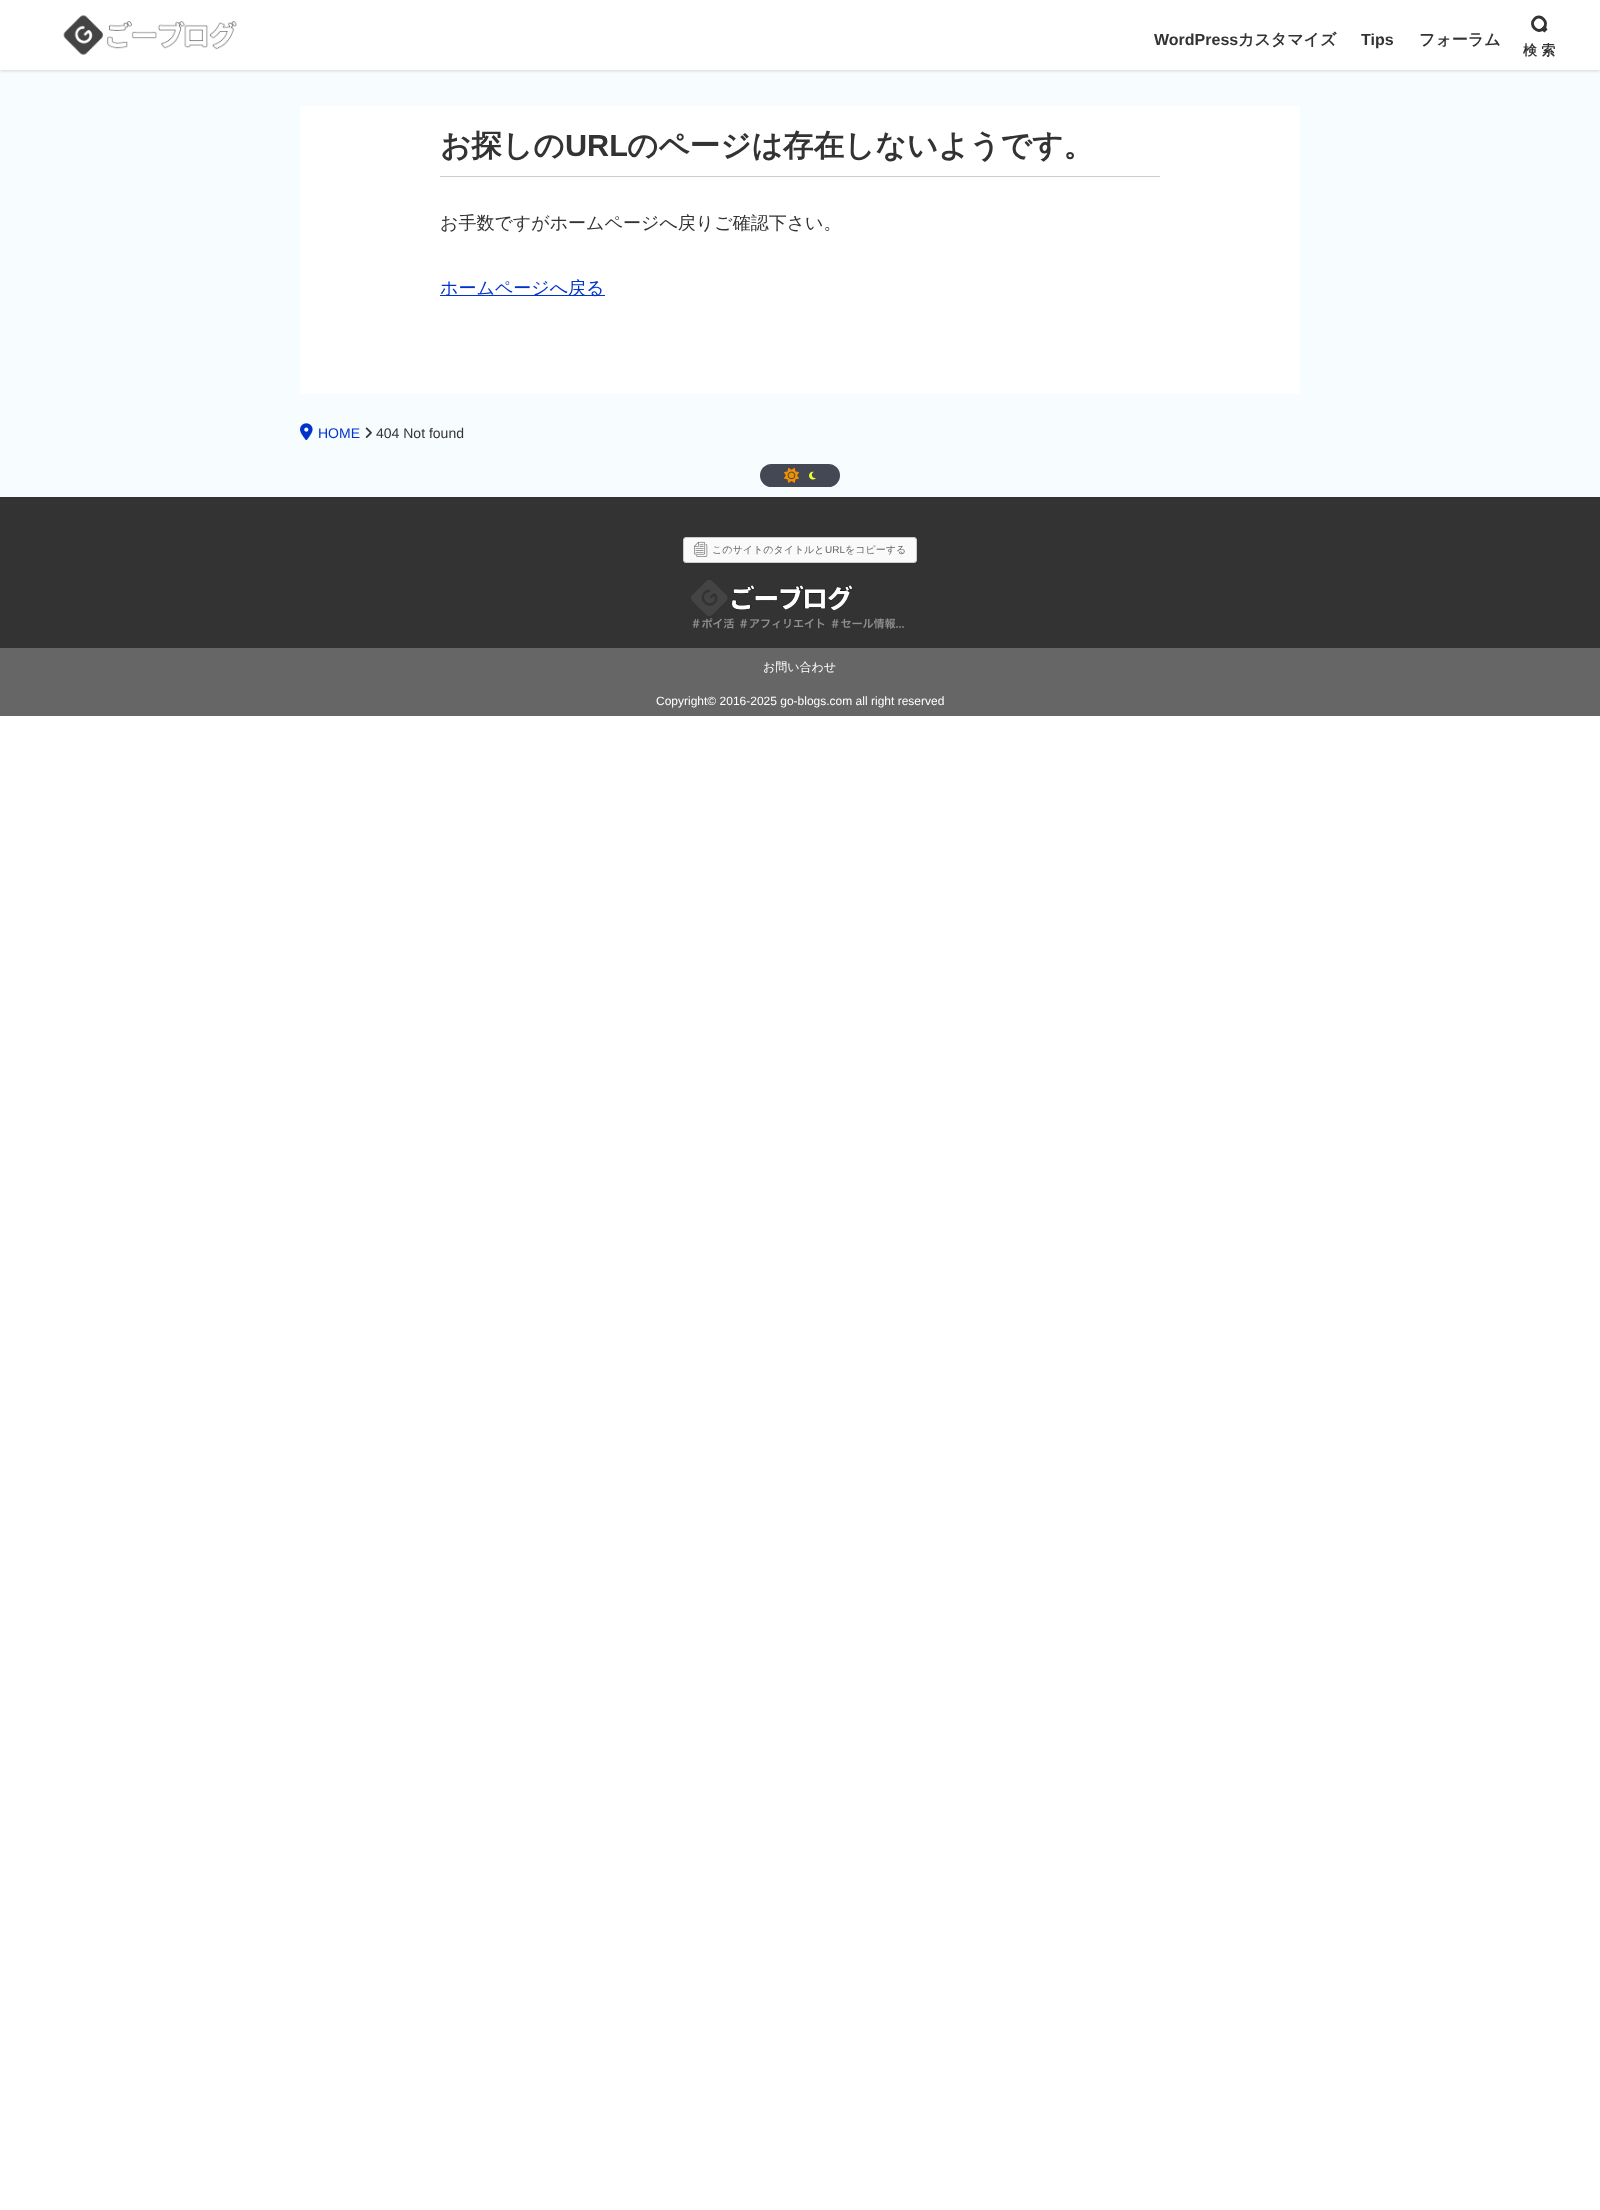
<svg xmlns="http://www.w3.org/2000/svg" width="1600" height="2210">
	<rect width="100%" height="100%" fill="#FFFFFF" />
	<rect x="0" y="70" width="1600" height="427" fill="#F7FCFF" />
	<rect x="0" y="1" width="1600" height="70" fill="#000000" fill-opacity="0.15" filter="blur(1.5px)" />
	<rect x="0" y="0" width="1600" height="70" fill="#FFFFFF" />
	<image x="63" y="15" width="174" height="40" href="assets/img1.png" />
	<text x="1154" y="45" font-family="Liberation Sans" font-size="16" font-weight="700" fill="#333333">WordPress</text>
	<text x="1238" y="45" font-family="WenQuanYi Zen Hei" font-size="16" font-weight="700" fill="#333333">カスタマイズ</text>
	<text x="1361" y="45" font-family="Liberation Sans" font-size="16" font-weight="700" fill="#333333">Tips</text>
	<text x="1419" y="45" font-family="WenQuanYi Zen Hei" font-size="16" font-weight="700" fill="#333333">フォーラム</text>
	<path d="M1534.5 19C1540.5 13 1549.5 22.5 1543.5 28.5C1537.5 34.5 1528.5 25 1534.5 19Z" fill="none" stroke="#333333" stroke-width="3" />
	<path d="M1540.5 29.5L1544.5 25L1547.5 29.5L1544.5 32.5Z" fill="#333333" />
	<text x="1523" y="55" font-family="WenQuanYi Zen Hei" font-size="14" font-weight="700" fill="#333333">検 索</text>
	<rect x="300" y="106" width="1000" height="288" rx="3" fill="#FFFFFF" />
	<rect x="440" y="176" width="720" height="1" fill="#CCCCCC" />
	<text x="440" y="156" font-family="WenQuanYi Zen Hei" font-size="30.6" font-weight="700" fill="#333333">お探しの</text>
	<text x="565" y="156" font-family="Liberation Sans" font-size="30.6" font-weight="700" fill="#333333">URL</text>
	<text x="627" y="156" font-family="WenQuanYi Zen Hei" font-size="30.6" font-weight="700" fill="#333333">のページは存在しないようです。</text>
	<text x="440" y="229" font-family="WenQuanYi Zen Hei" font-size="18" font-weight="500" fill="#333333">お手数ですがホームページへ戻りご確認下さい。</text>
	<rect x="440" y="295" width="165" height="1" fill="#0033CC" />
	<text x="440" y="294" font-family="WenQuanYi Zen Hei" font-size="18" font-weight="500" fill="#0033CC">ホームページへ戻る</text>
	<image x="300" y="423" width="13" height="17" href="assets/img2.png" />
	<text x="318" y="438" font-family="Liberation Sans" font-size="14" fill="#0033CC">HOME</text>
	<image x="365" y="427" width="7" height="11" href="assets/img3.png" />
	<text x="376" y="438" font-family="Liberation Sans" font-size="14" fill="#333333">404 Not found</text>
	<rect x="760" y="464" width="80" height="23" rx="11.5" fill="#444754" />
	<image x="784" y="467" width="15" height="16" href="assets/img4.png" />
	<image x="809" y="471" width="7" height="9" href="assets/img5.png" />
	<rect x="0" y="497" width="1600" height="151" fill="#333333" />
	<rect x="683.5" y="537.5" width="233" height="25" rx="2.5" fill="#FAFAFA" stroke="#CCCCCC" />
	<image x="694" y="541" width="14" height="16" href="assets/img6.png" />
	<text x="712" y="553" font-family="WenQuanYi Zen Hei" font-size="10" font-weight="500" fill="#666666">このサイトのタイトルと</text>
	<text x="825" y="553" font-family="Liberation Sans" font-size="10" fill="#666666">URL</text>
	<text x="845" y="553" font-family="WenQuanYi Zen Hei" font-size="10" font-weight="500" fill="#666666">をコピーする</text>
	<image x="691" y="579" width="213" height="50" href="assets/img7.png" />
	<rect x="0" y="648" width="1600" height="68" fill="#666666" />
	<text x="763" y="671" font-family="WenQuanYi Zen Hei" font-size="12" font-weight="500" fill="#FFFFFF">お問い合わせ</text>
	<text x="656" y="705" font-family="Liberation Sans" font-size="12" fill="#FFFFFF">Copyright© 2016-2025 go-blogs.com all right reserved</text>
</svg>
